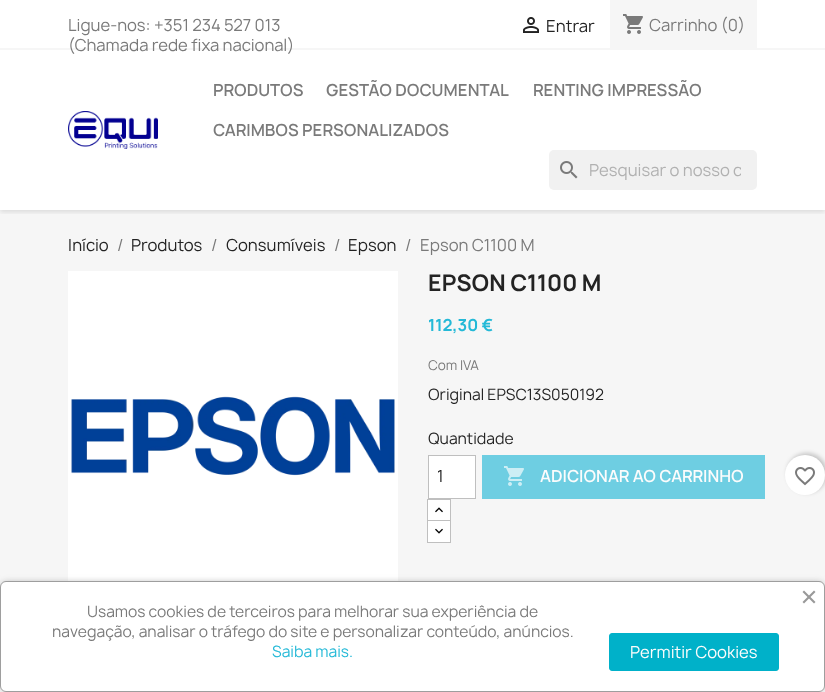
<svg xmlns="http://www.w3.org/2000/svg" width="825" height="692">
	<defs>
		<clipPath id="clip1"><rect x="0" y="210" width="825" height="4" /></clipPath>
		<clipPath id="clip2"><rect x="589" y="157" width="152" height="27" /></clipPath>
	</defs>
	<rect width="100%" height="100%" fill="#FFFFFF" />
	<rect x="0" y="210" width="825" height="482" fill="#F6F6F6" />
	<g clip-path="url(#clip1)">
		<rect x="0" y="2" width="825" height="210" fill="#000000" fill-opacity="0.11" filter="blur(2.5px)" />
	</g>
	<rect x="0" y="48" width="825" height="2" fill="#F6F6F6" />
	<g font-family="Manrope" font-size="16" fill="#7A7A7A">
		<text x="68" y="31">Ligue-nos: +351 234 527 013</text>
		<text x="68" y="51">(Chamada rede fixa nacional)</text>
	</g>
	<image x="523" y="17" width="16" height="16" href="assets/img1.png" />
	<text x="546" y="32" font-family="Manrope" font-size="16" fill="#232323">Entrar</text>
	<rect x="610" y="0" width="147" height="48" fill="#F6F6F6" />
	<image x="623" y="14" width="20" height="20" href="assets/img2.png" />
	<text x="649" y="31" font-family="Manrope" font-size="16" fill="#7A7A7A">Carrinho (0)</text>
	<image x="68" y="111" width="90" height="38" href="assets/img3.png" />
	<g font-family="Manrope" font-size="16" font-weight="600" fill="#7A7A7A">
		<text x="213" y="96">PRODUTOS</text>
		<text x="326" y="96">GESTÃO DOCUMENTAL</text>
		<text x="533" y="96">RENTING IMPRESSÃO</text>
		<text x="213" y="136">CARIMBOS PERSONALIZADOS</text>
	</g>
	<rect x="549" y="150" width="208" height="40" rx="5" fill="#F1F1F1" />
	<image x="560" y="161" width="18" height="18" href="assets/img4.png" />
	<g clip-path="url(#clip2)">
		<text x="589" y="176" font-family="Manrope" font-size="16" fill="#B1B1B1">Pesquisar o nosso c</text>
	</g>
	<text x="68" y="251" font-family="Manrope" font-size="16" fill="#232323">Início</text>
	<text x="117" y="251" font-family="Manrope" font-size="16" fill="#7A7A7A">/</text>
	<text x="131" y="251" font-family="Manrope" font-size="16" fill="#232323">Produtos</text>
	<text x="211" y="251" font-family="Manrope" font-size="16" fill="#7A7A7A">/</text>
	<text x="226" y="251" font-family="Manrope" font-size="16" fill="#232323">Consumíveis</text>
	<text x="334" y="251" font-family="Manrope" font-size="16" fill="#7A7A7A">/</text>
	<text x="348" y="251" font-family="Manrope" font-size="16" fill="#232323">Epson</text>
	<g font-family="Manrope" font-size="16" fill="#7A7A7A">
		<text x="405" y="251">/</text>
		<text x="420" y="251">Epson C1100 M</text>
	</g>
	<rect x="68" y="271" width="330" height="310" fill="#FFFFFF" />
	<image x="71" y="396" width="324" height="80" href="assets/img5.png" />
	<text x="428" y="291" font-family="Manrope" font-size="22" font-weight="700" fill="#232323">EPSON C1100 M</text>
	<text x="428" y="331" font-family="Manrope" font-size="16" font-weight="700" fill="#24B9D7">112,30 €</text>
	<text x="428" y="370" font-family="Manrope" font-size="13" fill="#7A7A7A">Com IVA</text>
	<g font-family="Manrope" font-size="15" fill="#232323">
		<text x="428" y="400">Original EPSC13S050192</text>
		<text x="428" y="444">Quantidade</text>
	</g>
	<rect x="428.5" y="455.5" width="47" height="43" fill="#FFFFFF" stroke="#BFBFBF" />
	<text x="437" y="482" font-family="Manrope" font-size="16" fill="#232323">1</text>
	<rect x="428" y="500" width="22" height="20" fill="#FFFFFF" />
	<rect x="427.5" y="499.5" width="23" height="22" fill="none" stroke="#BFBFBF" />
	<image x="435" y="507" width="8" height="6" href="assets/img6.png" />
	<rect x="427.5" y="520.5" width="23" height="22" fill="#FFFFFF" stroke="#BFBFBF" />
	<image x="435" y="528" width="8" height="6" href="assets/img7.png" />
	<rect x="482" y="455" width="283" height="44" fill="#6ECEE2" />
	<image x="504" y="466" width="20" height="20" href="assets/img8.png" />
	<text x="540" y="482" font-family="Manrope" font-size="16" font-weight="600" fill="#FCFCFC">ADICIONAR AO CARRINHO</text>
	<rect x="787" y="453" width="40" height="40" rx="20" fill="#000000" fill-opacity="0.2" filter="blur(2px)" />
	<circle cx="805" cy="475" r="20" fill="#FFFFFF" />
	<image x="795" y="467" width="20" height="19" href="assets/img9.png" />
	<rect x="2" y="583" width="821" height="107" rx="4" fill="#9E9E9E" filter="blur(3.5px)" />
	<rect x="0.5" y="581.5" width="824" height="110" rx="5.5" fill="#FFFFFF" stroke="#9E9E9E" />
	<path d="M802.5 602L814 590.5L815.5 592L804 603.5Z" fill="#999999" />
	<path d="M804 590.5L815.5 602L814 603.5L802.5 592Z" fill="#999999" />
	<g font-family="Manrope" font-size="15" fill="#7A7A7A">
		<text x="87" y="617">Usamos cookies de terceiros para melhorar sua experiência de</text>
		<text x="52" y="637">navegação, analisar o tráfego do site e personalizar conteúdo, anúncios.</text>
	</g>
	<text x="272" y="657" font-family="Manrope" font-size="15" fill="#24B9D7">Saiba mais.</text>
	<rect x="609.5" y="633.5" width="169" height="37" rx="2.5" fill="#00B1C9" stroke="#00B1C9" />
	<text x="630" y="658" font-family="Manrope" font-size="16" fill="#FCFCFC">Permitir Cookies</text>
</svg>
